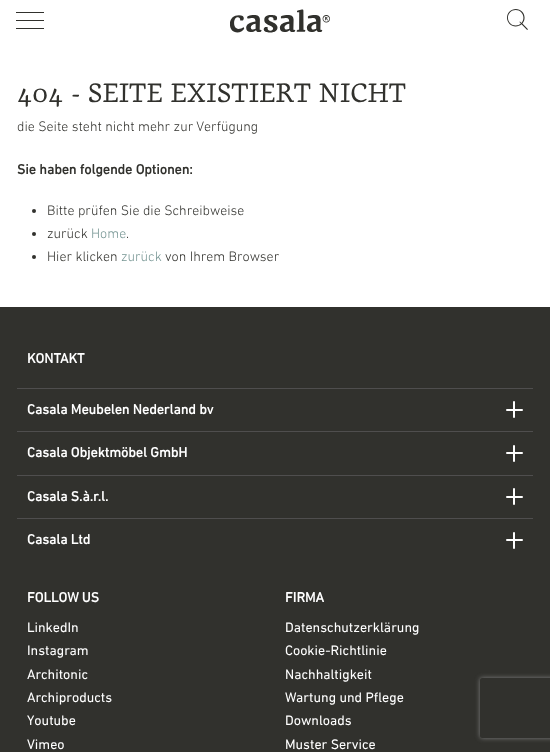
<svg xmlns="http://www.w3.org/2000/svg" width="550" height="752">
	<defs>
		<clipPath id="clip1"><path d="M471 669H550V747H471ZM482 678H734C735 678 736 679 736 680V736C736 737 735 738 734 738H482C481 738 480 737 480 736V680C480 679 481 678 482 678Z" clip-rule="evenodd" /></clipPath>
	</defs>
	<rect width="100%" height="100%" fill="#FFFFFF" />
	<rect x="16" y="20" width="28" height="1" fill="#31312D" />
	<rect x="16" y="12" width="28" height="1" fill="#31312D" />
	<rect x="16" y="28" width="28" height="1" fill="#31312D" />
	<image x="230" y="9" width="100" height="24" href="assets/img1.png" />
	<image x="507" y="9" width="21" height="21" href="assets/img2.png" />
	<text x="17" y="102" font-family="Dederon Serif" font-size="26" fill="#31312D">404 - SEITE EXISTIERT NICHT</text>
	<text x="17" y="131" font-family="Din Next" font-size="14" fill="#31312D">die Seite steht nicht mehr zur Verfügung</text>
	<text x="17" y="174" font-family="Din Next" font-size="14" font-weight="700" fill="#31312D">Sie haben folgende Optionen:</text>
	<circle cx="34" cy="211" r="2" fill="#31312D" />
	<text x="47" y="215" font-family="Din Next" font-size="14" fill="#31312D">Bitte prüfen Sie die Schreibweise</text>
	<circle cx="34" cy="234" r="2" fill="#31312D" />
	<text x="47" y="238" font-family="Din Next" font-size="14" fill="#31312D">zurück</text>
	<text x="91" y="238" font-family="Din Next" font-size="14" fill="#779694">Home</text>
	<text x="126" y="238" font-family="Din Next" font-size="14" fill="#31312D">.</text>
	<circle cx="34" cy="257" r="2" fill="#31312D" />
	<text x="47" y="261" font-family="Din Next" font-size="14" fill="#31312D">Hier klicken</text>
	<text x="121" y="261" font-family="Din Next" font-size="14" fill="#779694">zurück</text>
	<text x="165" y="261" font-family="Din Next" font-size="14" fill="#31312D">von Ihrem Browser</text>
	<rect x="0" y="307" width="550" height="445" fill="#31312D" />
	<text x="27" y="363" font-family="Din Next" font-size="14" font-weight="700" fill="#FFFFFF">KONTAKT</text>
	<rect x="17" y="388" width="516" height="1" fill="#4F4E4E" />
	<text x="27" y="414" font-family="Din Next" font-size="14" font-weight="700" fill="#FFFFFF">Casala Meubelen Nederland bv</text>
	<rect x="506" y="409" width="17" height="2" rx="1" fill="#FFFFFF" />
	<rect x="513" y="401" width="2" height="17" rx="1" fill="#FFFFFF" />
	<rect x="17" y="431" width="516" height="1" fill="#4F4E4E" />
	<text x="27" y="457" font-family="Din Next" font-size="14" font-weight="700" fill="#FFFFFF">Casala Objektmöbel GmbH</text>
	<rect x="506" y="452" width="17" height="2" rx="1" fill="#FFFFFF" />
	<rect x="513" y="445" width="2" height="17" rx="1" fill="#FFFFFF" />
	<rect x="17" y="475" width="516" height="1" fill="#4F4E4E" />
	<text x="27" y="501" font-family="Din Next" font-size="14" font-weight="700" fill="#FFFFFF">Casala S.à.r.l.</text>
	<rect x="506" y="496" width="17" height="2" rx="1" fill="#FFFFFF" />
	<rect x="513" y="488" width="2" height="17" rx="1" fill="#FFFFFF" />
	<rect x="17" y="518" width="516" height="1" fill="#4F4E4E" />
	<text x="27" y="544" font-family="Din Next" font-size="14" font-weight="700" fill="#FFFFFF">Casala Ltd</text>
	<rect x="506" y="539" width="17" height="2" rx="1" fill="#FFFFFF" />
	<rect x="513" y="532" width="2" height="17" rx="1" fill="#FFFFFF" />
	<text x="27" y="602" font-family="Din Next" font-size="14" font-weight="700" fill="#FFFFFF">FOLLOW US</text>
	<g font-family="'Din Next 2'" font-size="14" fill="#FFFFFF">
		<text x="27" y="632">LinkedIn</text>
		<text x="27" y="655">Instagram</text>
		<text x="27" y="679">Architonic</text>
		<text x="27" y="702">Archiproducts</text>
		<text x="27" y="725">Youtube</text>
		<text x="27" y="749">Vimeo</text>
	</g>
	<text x="285" y="602" font-family="Din Next" font-size="14" font-weight="700" fill="#FFFFFF">FIRMA</text>
	<g font-family="'Din Next 2'" font-size="14" fill="#FFFFFF">
		<text x="285" y="632">Datenschutzerklärung</text>
		<text x="285" y="655">Cookie-Richtlinie</text>
		<text x="285" y="679">Nachhaltigkeit</text>
		<text x="285" y="702">Wartung und Pflege</text>
		<text x="285" y="725">Downloads</text>
		<text x="285" y="749">Muster Service</text>
	</g>
	<g clip-path="url(#clip1)">
		<rect x="480" y="678" width="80" height="60" rx="2" fill="#808080" filter="blur(2.5px)" />
	</g>
</svg>
